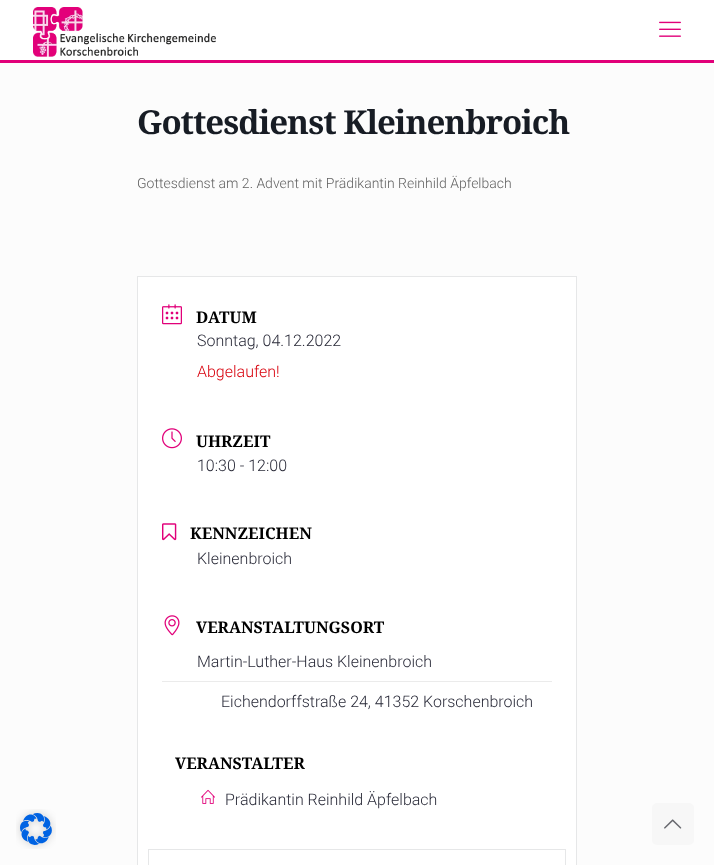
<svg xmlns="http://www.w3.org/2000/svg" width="714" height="865">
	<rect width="100%" height="100%" fill="#FCFCFC" />
	<rect x="0" y="0" width="714" height="60" fill="#FFFFFF" />
	<rect x="0" y="60" width="714" height="3" fill="#E10079" />
	<image x="33" y="7" width="183" height="50" href="assets/img1.png" />
	<image x="659" y="21" width="22" height="16" href="assets/img2.png" />
	<text x="137" y="134" font-family="Noto Serif" font-size="33" font-weight="700" letter-spacing="-1" fill="#171C24">Gottesdienst Kleinenbroich</text>
	<text x="137" y="188" font-family="Roboto" font-size="14" font-weight="300" fill="#616161">Gottesdienst am 2. Advent mit Prädikantin Reinhild Äpfelbach</text>
	<rect x="137.5" y="276.5" width="439" height="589" fill="#FFFFFF" stroke="#E6E7E8" />
	<image x="162" y="304" width="20" height="21" href="assets/img3.png" />
	<text x="196" y="323" font-family="Noto Serif" font-size="16" font-weight="700" fill="#000000">DATUM</text>
	<text x="197" y="346" font-family="Roboto" font-size="16" font-weight="300" fill="#2A2B39">Sonntag, 04.12.2022</text>
	<text x="197" y="377" font-family="Roboto" font-size="16" font-weight="300" fill="#D8000C">Abgelaufen!</text>
	<image x="162" y="428" width="20" height="21" href="assets/img4.png" />
	<text x="196" y="447" font-family="Noto Serif" font-size="16" font-weight="700" fill="#000000">UHRZEIT</text>
	<text x="197" y="471" font-family="Roboto" font-size="16" font-weight="300" fill="#2A2B39">10:30 - 12:00</text>
	<image x="162" y="523" width="15" height="18" href="assets/img5.png" />
	<text x="190" y="539" font-family="Noto Serif" font-size="16" font-weight="700" fill="#000000">KENNZEICHEN</text>
	<text x="197" y="564" font-family="Roboto" font-size="16" font-weight="300" fill="#2A2B39">Kleinenbroich</text>
	<image x="164" y="615" width="16" height="21" href="assets/img6.png" />
	<text x="196" y="633" font-family="Noto Serif" font-size="16" font-weight="700" fill="#000000">VERANSTALTUNGSORT</text>
	<text x="197" y="667" font-family="Roboto" font-size="16" font-weight="300" fill="#2A2B39">Martin-Luther-Haus Kleinenbroich</text>
	<rect x="162" y="681" width="390" height="1" fill="#EBEBEB" />
	<text x="221" y="707" font-family="Roboto" font-size="16" font-weight="300" fill="#2A2B39">Eichendorffstraße 24, 41352 Korschenbroich</text>
	<text x="175" y="769" font-family="Noto Serif" font-size="16" font-weight="700" fill="#000000">VERANSTALTER</text>
	<image x="201" y="789" width="14" height="15" href="assets/img7.png" />
	<text x="225" y="805" font-family="Roboto" font-size="16" font-weight="300" fill="#2A2B39">Prädikantin Reinhild Äpfelbach</text>
	<rect x="148.5" y="849.5" width="417" height="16" fill="none" stroke="#E6E7E8" />
	<image x="16" y="809" width="40" height="40" href="assets/img8.png" />
	<rect x="652" y="803" width="42" height="42" rx="5" fill="#F7F7F7" />
	<image x="664" y="819" width="18" height="10" href="assets/img9.png" />
</svg>
